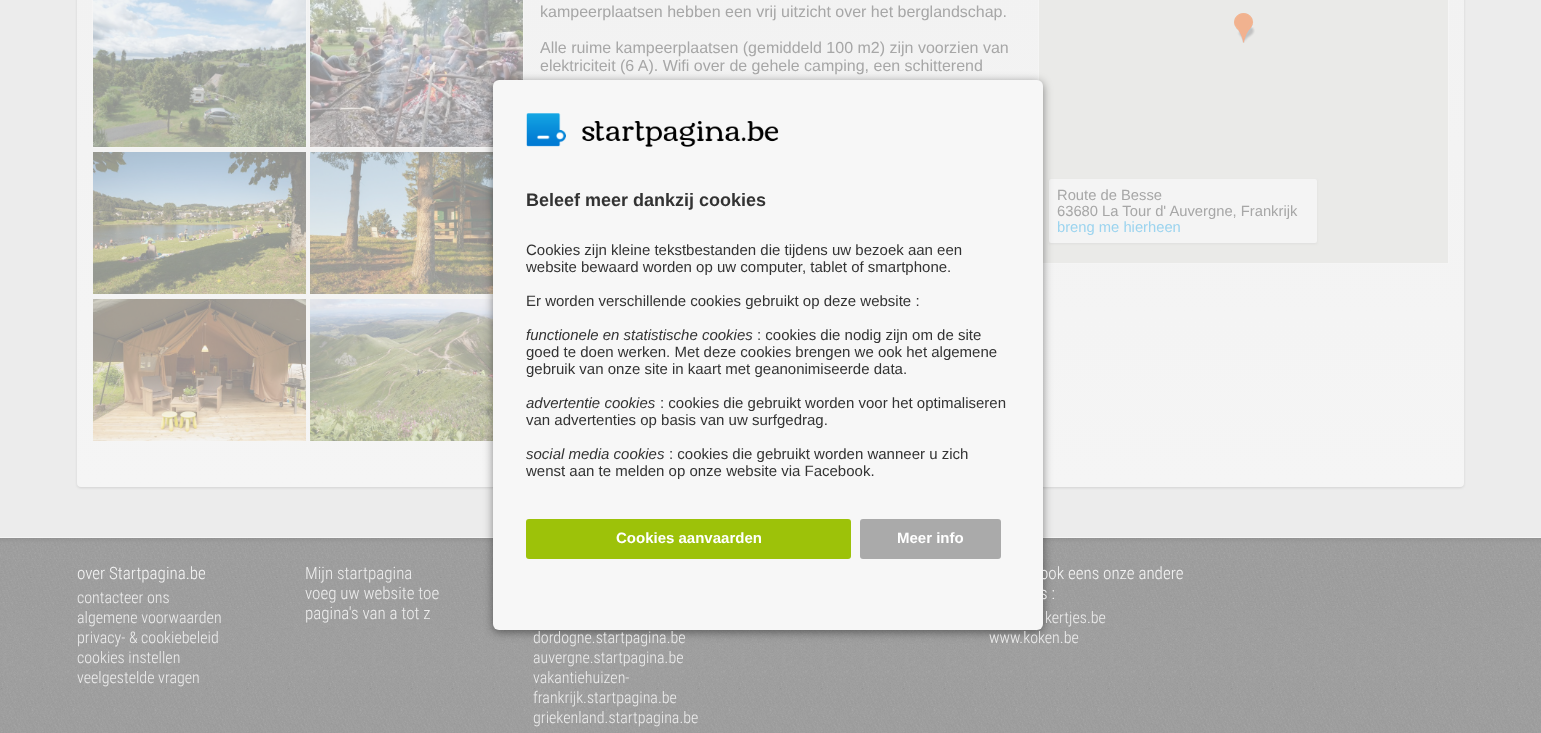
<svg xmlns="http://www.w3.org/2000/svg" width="1541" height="733">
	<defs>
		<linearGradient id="g1" gradientUnits="userSpaceOnUse" x1="771" y1="487" x2="771" y2="-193"><stop offset="0" stop-color="#F5F5F5" /><stop offset="1" stop-color="#F1F1F1" /></linearGradient>
	</defs>
	<rect width="100%" height="100%" fill="#ECECEC" />
	<rect x="77" y="-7" width="1387" height="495" rx="4" fill="#8F8F8F" fill-opacity="0.27" filter="blur(1px)" />
	<rect x="77" y="-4" width="1387" height="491" rx="4" fill="url(#g1)" />
	<rect x="92.5" y="-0.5" width="214" height="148" fill="none" stroke="#F5F5F5" />
	<image x="93" y="0" width="213" height="147" href="assets/img1.png" />
	<rect x="309.5" y="-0.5" width="214" height="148" fill="none" stroke="#F5F5F5" />
	<image x="310" y="0" width="213" height="147" href="assets/img2.png" />
	<image x="93" y="152" width="213" height="142" href="assets/img3.png" />
	<image x="310" y="152" width="183" height="142" href="assets/img4.png" />
	<image x="93" y="299" width="213" height="142" href="assets/img5.png" />
	<image x="310" y="299" width="183" height="142" href="assets/img6.png" />
	<g font-family="Liberation Sans" font-size="16" fill="#A7A7A7">
		<text x="540" y="17">kampeerplaatsen hebben een vrij uitzicht over het berglandschap.</text>
		<text x="540" y="53">Alle ruime kampeerplaatsen (gemiddeld 100 m2) zijn voorzien van</text>
		<text x="540" y="71">elektriciteit (6 A). Wifi over de gehele camping, een schitterend</text>
	</g>
	<rect x="1038.5" y="-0.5" width="410" height="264" fill="none" stroke="#F5F5F5" />
	<rect x="1039" y="0" width="409" height="263" fill="#EAEAE8" />
	<image x="1234" y="13" width="21" height="30" href="assets/img7.png" />
	<rect x="1049" y="180" width="268" height="64" rx="2" fill="#B3B3B3" fill-opacity="0.2" filter="blur(1px)" />
	<rect x="1049" y="179" width="268" height="64" rx="2" fill="#F4F4F4" />
	<g font-family="Liberation Sans" font-size="14.75" fill="#A7A7A7">
		<text x="1057" y="200">Route de Besse</text>
		<text x="1057" y="216">63680 La Tour d' Auvergne, Frankrijk</text>
	</g>
	<text x="1057" y="232" font-family="Liberation Sans" font-size="14.75" fill="#9CD4EF">breng me hierheen</text>
	<rect x="0" y="537" width="1541" height="1" fill="#F5F5F5" />
	<image x="0" y="538" width="1541" height="195" href="assets/img10.png" />
	<rect x="493" y="82" width="550" height="550" rx="6" fill="#000000" fill-opacity="0.45" filter="blur(5px)" />
	<g font-family="Roboto Condensed" font-size="17" font-weight="300" fill="#F5F5F5">
		<text x="1040" y="579">ook eens onze andere</text>
		<text x="1040" y="599">s :</text>
	</g>
	<rect x="493" y="80" width="550" height="550" rx="6" fill="#F7F7F7" />
	<image x="526" y="113" width="40" height="34" href="assets/img8.png" />
	<image x="582" y="121" width="197" height="26" href="assets/img9.png" />
	<text x="526" y="206" font-family="Liberation Sans" font-size="18" font-weight="700" fill="#333333">Beleef meer dankzij cookies</text>
	<g font-family="Liberation Sans" font-size="15" fill="#333333">
		<text x="526" y="255">Cookies zijn kleine tekstbestanden die tijdens uw bezoek aan een</text>
		<text x="526" y="272">website bewaard worden op uw computer, tablet of smartphone.</text>
		<text x="526" y="306">Er worden verschillende cookies gebruikt op deze website :</text>
	</g>
	<text x="526" y="340" font-family="Liberation Sans" font-size="15" font-style="italic" fill="#333333">functionele en statistische cookies</text>
	<g font-family="Liberation Sans" font-size="15" fill="#333333">
		<text x="757" y="340">: cookies die nodig zijn om de site</text>
		<text x="526" y="357">goed te doen werken. Met deze cookies brengen we ook het algemene</text>
		<text x="526" y="374">gebruik van onze site in kaart met geanonimiseerde data.</text>
	</g>
	<text x="526" y="408" font-family="Liberation Sans" font-size="15" font-style="italic" fill="#333333">advertentie cookies</text>
	<g font-family="Liberation Sans" font-size="15" fill="#333333">
		<text x="660" y="408">: cookies die gebruikt worden voor het optimaliseren</text>
		<text x="526" y="425">van advertenties op basis van uw surfgedrag.</text>
	</g>
	<text x="526" y="459" font-family="Liberation Sans" font-size="15" font-style="italic" fill="#333333">social media cookies</text>
	<g font-family="Liberation Sans" font-size="15" fill="#333333">
		<text x="669" y="459">: cookies die gebruikt worden wanneer u zich</text>
		<text x="526" y="476">wenst aan te melden op onze website via Facebook.</text>
	</g>
	<rect x="526" y="519" width="325" height="40" rx="3" fill="#9DC209" />
	<text x="616" y="543" font-family="Liberation Sans" font-size="15" font-weight="700" fill="#FFFFFF">Cookies aanvaarden</text>
	<rect x="860" y="519" width="141" height="40" rx="3" fill="#AAAAAA" />
	<text x="897" y="543" font-family="Liberation Sans" font-size="15" font-weight="700" fill="#FFFFFF">Meer info</text>
	<text x="77" y="579" font-family="Roboto Condensed" font-size="17" font-weight="300" fill="#F5F5F5">over Startpagina.be</text>
	<g font-family="Roboto Condensed" font-size="16" font-weight="300" fill="#EEEEEE">
		<text x="77" y="603">contacteer ons</text>
		<text x="77" y="623">algemene voorwaarden</text>
		<text x="77" y="643">privacy- &amp; cookiebeleid</text>
		<text x="77" y="663">cookies instellen</text>
		<text x="77" y="683">veelgestelde vragen</text>
	</g>
	<g font-family="Roboto Condensed" font-size="17" font-weight="300" fill="#EEEEEE">
		<text x="305" y="579">Mijn startpagina</text>
		<text x="305" y="599">voeg uw website toe</text>
		<text x="305" y="619">pagina's van a tot z</text>
	</g>
	<g font-family="Roboto Condensed" font-size="16" font-weight="300" fill="#EEEEEE">
		<text x="1045" y="623">kertjes.be</text>
		<text x="989" y="643">www.koken.be</text>
		<text x="533" y="643">dordogne.startpagina.be</text>
		<text x="533" y="663">auvergne.startpagina.be</text>
		<text x="533" y="683">vakantiehuizen-</text>
		<text x="533" y="703">frankrijk.startpagina.be</text>
		<text x="533" y="723">griekenland.startpagina.be</text>
	</g>
</svg>
